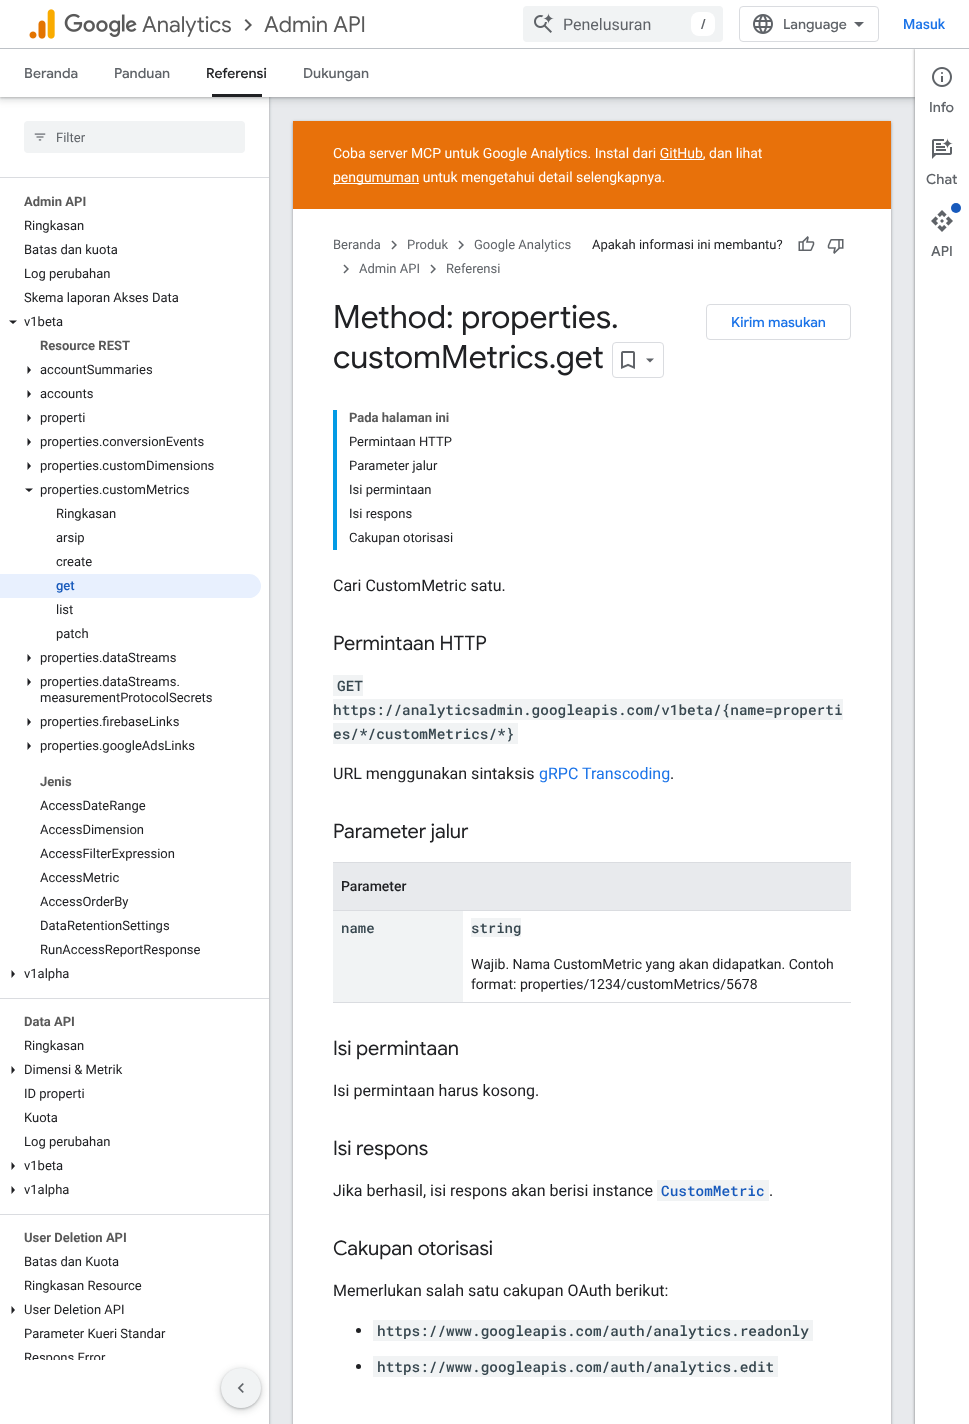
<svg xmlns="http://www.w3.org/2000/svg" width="969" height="1424">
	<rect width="100%" height="100%" fill="#E8EAED" />
	<rect x="-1" y="0" width="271" height="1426" fill="#3C4043" fill-opacity="0.15" filter="blur(1.5px)" />
	<rect x="0" y="1" width="269" height="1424" fill="#3C4043" fill-opacity="0.3" filter="blur(1px)" />
	<rect x="0" y="97" width="269" height="1263" fill="#FFFFFF" />
	<rect x="-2" y="49" width="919" height="52" fill="#3C4043" fill-opacity="0.15" filter="blur(3px)" />
	<rect x="0" y="50" width="915" height="48" fill="#3C4043" fill-opacity="0.3" filter="blur(1px)" />
	<rect x="0" y="49" width="915" height="48" fill="#FFFFFF" />
	<rect x="914" y="48" width="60" height="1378" fill="#000000" fill-opacity="0.15" filter="blur(1.5px)" />
	<rect x="915" y="49" width="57" height="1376" fill="#000000" fill-opacity="0.3" filter="blur(1px)" />
	<rect x="0" y="0" width="969" height="48" fill="#FFFFFF" />
	<rect x="0" y="48" width="969" height="1" fill="#BDC1C6" />
	<image x="29" y="9" width="26" height="30" href="assets/img1.png" />
	<image x="64" y="13" width="73" height="24" href="assets/img2.png" />
	<text x="142" y="32" font-family="Google Sans" font-size="22" fill="#595959">Analytics</text>
	<image x="244" y="19" width="8" height="12" href="assets/img3.png" />
	<text x="264" y="32" font-family="Google Sans" font-size="22" fill="#595959">Admin API</text>
	<rect x="523" y="6" width="200" height="36" rx="4" fill="#F1F3F4" />
	<image x="534" y="13" width="20" height="20" href="assets/img4.png" />
	<text x="563" y="30" font-family="Roboto" font-size="16" fill="#5F6368">Penelusuran</text>
	<rect x="691" y="12" width="24" height="24" rx="8" fill="#FFFFFF" />
	<text x="701" y="29" font-family="Google Sans" font-size="14" font-weight="500" fill="#5F6368">/</text>
	<rect x="739.5" y="6.5" width="139" height="35" rx="3.5" fill="none" stroke="#DADCE0" />
	<image x="753" y="14" width="20" height="20" href="assets/img5.png" />
	<text x="783" y="29" font-family="Google Sans" font-size="14" font-weight="500" fill="#5F6368">Language</text>
	<path d="M859 27L854 22H864Z" fill="#5F6368" />
	<text x="903" y="29" font-family="Roboto" font-size="14" font-weight="500" fill="#1A73E8">Masuk</text>
	<g font-family="Google Sans" font-size="14" font-weight="500" fill="#5F6368">
		<text x="24" y="78">Beranda</text>
		<text x="114" y="78">Panduan</text>
	</g>
	<text x="206" y="78" font-family="Google Sans" font-size="14" font-weight="500" fill="#202124">Referensi</text>
	<rect x="212" y="94" width="50" height="3" fill="#202124" />
	<text x="303" y="78" font-family="Google Sans" font-size="14" font-weight="500" fill="#5F6368">Dukungan</text>
	<rect x="0" y="177" width="269" height="1" fill="#DADCE0" />
	<rect x="24" y="121" width="221" height="32" rx="4" fill="#F1F3F4" />
	<image x="34" y="133" width="12" height="8" href="assets/img6.png" />
	<text x="56" y="142" font-family="Roboto" font-size="13" fill="#5F6368">Filter</text>
	<text x="24" y="206" font-family="Roboto" font-size="13" font-weight="700" fill="#595959">Admin API</text>
	<g font-family="Roboto" font-size="13" fill="#202124">
		<text x="24" y="230">Ringkasan</text>
		<text x="24" y="254">Batas dan kuota</text>
		<text x="24" y="278">Log perubahan</text>
		<text x="24" y="302">Skema laporan Akses Data</text>
	</g>
	<path d="M9 320.5H17L13 324Z" fill="#202124" />
	<text x="24" y="326" font-family="Roboto" font-size="13" fill="#202124">v1beta</text>
	<text x="40" y="350" font-family="Roboto" font-size="13" font-weight="700" fill="#595959">Resource REST</text>
	<path d="M27.5 374V366L31 370Z" fill="#202124" />
	<text x="40" y="374" font-family="Roboto" font-size="13" fill="#202124">accountSummaries</text>
	<path d="M27.5 398V390L31 394Z" fill="#202124" />
	<text x="40" y="398" font-family="Roboto" font-size="13" fill="#202124">accounts</text>
	<path d="M27.5 422V414L31 418Z" fill="#202124" />
	<text x="40" y="422" font-family="Roboto" font-size="13" fill="#202124">properti</text>
	<path d="M27.5 446V438L31 442Z" fill="#202124" />
	<text x="40" y="446" font-family="Roboto" font-size="13" fill="#202124">properties.conversionEvents</text>
	<path d="M27.5 470V462L31 466Z" fill="#202124" />
	<text x="40" y="470" font-family="Roboto" font-size="13" fill="#202124">properties.customDimensions</text>
	<path d="M25 488.5H33L29 492Z" fill="#202124" />
	<g font-family="Roboto" font-size="13" fill="#202124">
		<text x="40" y="494">properties.customMetrics</text>
		<text x="56" y="518">Ringkasan</text>
		<text x="56" y="542">arsip</text>
		<text x="56" y="566">create</text>
	</g>
	<path d="M0 574H249C255.5 574 261 579.5 261 586C261 592.5 255.5 598 249 598H0Z" fill="#E8F0FE" />
	<text x="56" y="590" font-family="Roboto" font-size="13" font-weight="500" fill="#185ABC">get</text>
	<g font-family="Roboto" font-size="13" fill="#202124">
		<text x="56" y="614">list</text>
		<text x="56" y="638">patch</text>
	</g>
	<path d="M27.5 662V654L31 658Z" fill="#202124" />
	<text x="40" y="662" font-family="Roboto" font-size="13" fill="#202124">properties.dataStreams</text>
	<path d="M27.5 686V678L31 682Z" fill="#202124" />
	<g font-family="Roboto" font-size="13" fill="#202124">
		<text x="40" y="686">properties.dataStreams.</text>
		<text x="40" y="702">measurementProtocolSecrets</text>
	</g>
	<path d="M27.5 726V718L31 722Z" fill="#202124" />
	<text x="40" y="726" font-family="Roboto" font-size="13" fill="#202124">properties.firebaseLinks</text>
	<path d="M27.5 750V742L31 746Z" fill="#202124" />
	<text x="40" y="750" font-family="Roboto" font-size="13" fill="#202124">properties.googleAdsLinks</text>
	<text x="40" y="786" font-family="Roboto" font-size="13" font-weight="700" fill="#595959">Jenis</text>
	<g font-family="Roboto" font-size="13" fill="#202124">
		<text x="40" y="810">AccessDateRange</text>
		<text x="40" y="834">AccessDimension</text>
		<text x="40" y="858">AccessFilterExpression</text>
		<text x="40" y="882">AccessMetric</text>
		<text x="40" y="906">AccessOrderBy</text>
		<text x="40" y="930">DataRetentionSettings</text>
		<text x="40" y="954">RunAccessReportResponse</text>
	</g>
	<path d="M11.5 978V970L15 974Z" fill="#202124" />
	<text x="24" y="978" font-family="Roboto" font-size="13" fill="#202124">v1alpha</text>
	<rect x="0" y="998" width="269" height="1" fill="#DADCE0" />
	<text x="24" y="1026" font-family="Roboto" font-size="13" font-weight="700" fill="#595959">Data API</text>
	<text x="24" y="1050" font-family="Roboto" font-size="13" fill="#202124">Ringkasan</text>
	<path d="M11.5 1074V1066L15 1070Z" fill="#202124" />
	<g font-family="Roboto" font-size="13" fill="#202124">
		<text x="24" y="1074">Dimensi &amp; Metrik</text>
		<text x="24" y="1098">ID properti</text>
		<text x="24" y="1122">Kuota</text>
		<text x="24" y="1146">Log perubahan</text>
	</g>
	<path d="M11.5 1170V1162L15 1166Z" fill="#202124" />
	<text x="24" y="1170" font-family="Roboto" font-size="13" fill="#202124">v1beta</text>
	<path d="M11.5 1194V1186L15 1190Z" fill="#202124" />
	<text x="24" y="1194" font-family="Roboto" font-size="13" fill="#202124">v1alpha</text>
	<rect x="0" y="1214" width="269" height="1" fill="#DADCE0" />
	<text x="24" y="1242" font-family="Roboto" font-size="13" font-weight="700" fill="#595959">User Deletion API</text>
	<g font-family="Roboto" font-size="13" fill="#202124">
		<text x="24" y="1266">Batas dan Kuota</text>
		<text x="24" y="1290">Ringkasan Resource</text>
	</g>
	<path d="M11.5 1314V1306L15 1310Z" fill="#202124" />
	<g font-family="Roboto" font-size="13" fill="#202124">
		<text x="24" y="1314">User Deletion API</text>
		<text x="24" y="1338">Parameter Kueri Standar</text>
		<text x="24" y="1362">Respons Error</text>
	</g>
	<rect x="292" y="121" width="600" height="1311" rx="3" fill="#3C4043" fill-opacity="0.15" filter="blur(1.5px)" />
	<rect x="293" y="122" width="598" height="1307" rx="2" fill="#3C4043" fill-opacity="0.3" filter="blur(1px)" />
	<rect x="293" y="209" width="598" height="1215" fill="#FFFFFF" />
	<rect x="293" y="121" width="598" height="88" fill="#E8710A" />
	<text x="333" y="158" font-family="Roboto" font-size="14" fill="#FFFFFF">Coba server MCP untuk Google Analytics. Instal dari GitHub, dan lihat</text>
	<rect x="660" y="159" width="43" height="1" fill="#FFFFFF" />
	<rect x="333" y="183" width="86" height="1" fill="#FFFFFF" />
	<text x="333" y="182" font-family="Roboto" font-size="14" fill="#FFFFFF">pengumuman untuk mengetahui detail selengkapnya.</text>
	<text x="333" y="249" font-family="Roboto" font-size="13" fill="#5F6368">Beranda</text>
	<image x="391" y="240" width="6" height="10" href="assets/img7.png" />
	<text x="407" y="249" font-family="Roboto" font-size="13" fill="#5F6368">Produk</text>
	<image x="458" y="240" width="6" height="10" href="assets/img7.png" />
	<text x="474" y="249" font-family="Roboto" font-size="13" fill="#5F6368">Google Analytics</text>
	<image x="343" y="264" width="6" height="10" href="assets/img7.png" />
	<text x="359" y="273" font-family="Roboto" font-size="13" fill="#5F6368">Admin API</text>
	<image x="430" y="264" width="6" height="10" href="assets/img7.png" />
	<text x="446" y="273" font-family="Roboto" font-size="13" fill="#5F6368">Referensi</text>
	<text x="592" y="249" font-family="Roboto" font-size="13" fill="#202124">Apakah informasi ini membantu?</text>
	<image x="798" y="236" width="17" height="15" href="assets/img8.png" />
	<image x="827" y="239" width="17" height="15" href="assets/img9.png" />
	<g font-family="Google Sans" font-size="32" fill="#202124">
		<text x="333" y="328">Method: properties.</text>
		<text x="333" y="368">customMetrics.get</text>
	</g>
	<rect x="612.5" y="342.5" width="51" height="35" rx="3.5" fill="none" stroke="#DADCE0" />
	<image x="621" y="351" width="14" height="18" href="assets/img10.png" />
	<path d="M646 358.5H654L650 362.5Z" fill="#5F6368" />
	<rect x="706.5" y="304.5" width="144" height="35" rx="3.5" fill="none" stroke="#DADCE0" />
	<text x="731" y="327" font-family="Google Sans" font-size="14" font-weight="500" fill="#1A73E8">Kirim masukan</text>
	<rect x="333" y="410" width="4" height="140" fill="#039BE5" />
	<text x="349" y="422" font-family="Roboto" font-size="13" font-weight="700" fill="#595959">Pada halaman ini</text>
	<g font-family="Roboto" font-size="13" fill="#202124">
		<text x="349" y="446">Permintaan HTTP</text>
		<text x="349" y="470">Parameter jalur</text>
		<text x="349" y="494">Isi permintaan</text>
		<text x="349" y="518">Isi respons</text>
		<text x="349" y="542">Cakupan otorisasi</text>
	</g>
	<text x="333" y="591" font-family="Roboto" font-size="16" fill="#202124">Cari CustomMetric satu.</text>
	<text x="333" y="650" font-family="Google Sans" font-size="20" fill="#202124">Permintaan HTTP</text>
	<rect x="333" y="675" width="30" height="21" fill="#F1F3F4" />
	<text x="337" y="691" font-family="Roboto Mono" font-size="14.4" font-weight="500" fill="#37474F">GET</text>
	<rect x="333" y="699" width="510" height="21" fill="#F1F3F4" />
	<text x="333" y="715" font-family="Roboto Mono" font-size="14.4" font-weight="500" fill="#37474F">https://analyticsadmin.googleapis.com/v1beta/{name=properti</text>
	<rect x="333" y="723" width="185" height="21" fill="#F1F3F4" />
	<text x="333" y="739" font-family="Roboto Mono" font-size="14.4" font-weight="500" fill="#37474F">es/*/customMetrics/*}</text>
	<text x="333" y="779" font-family="Roboto" font-size="16" fill="#202124">URL menggunakan sintaksis</text>
	<text x="539" y="779" font-family="Roboto" font-size="16" fill="#1A73E8">gRPC Transcoding</text>
	<text x="670" y="779" font-family="Roboto" font-size="16" fill="#202124">.</text>
	<text x="333" y="838" font-family="Google Sans" font-size="20" fill="#202124">Parameter jalur</text>
	<rect x="333" y="862" width="518" height="1" fill="#DADCE0" />
	<rect x="333" y="863" width="518" height="47" fill="#E8EAED" />
	<text x="341" y="891" font-family="Roboto" font-size="14" font-weight="500" fill="#202124">Parameter</text>
	<rect x="333" y="910" width="518" height="1" fill="#DADCE0" />
	<rect x="333" y="1002" width="518" height="1" fill="#DADCE0" />
	<rect x="333" y="911" width="130" height="91" fill="#F1F3F4" />
	<text x="341" y="933" font-family="Roboto Mono" font-size="14" font-weight="500" fill="#37474F">name</text>
	<rect x="471" y="918" width="50" height="19" fill="#F1F3F4" />
	<text x="471" y="933" font-family="Roboto Mono" font-size="14" font-weight="500" fill="#37474F">string</text>
	<g font-family="Roboto" font-size="14" fill="#202124">
		<text x="471" y="969">Wajib. Nama CustomMetric yang akan didapatkan. Contoh</text>
		<text x="471" y="989">format: properties/1234/customMetrics/5678</text>
	</g>
	<text x="333" y="1055" font-family="Google Sans" font-size="20" fill="#202124">Isi permintaan</text>
	<text x="333" y="1096" font-family="Roboto" font-size="16" fill="#202124">Isi permintaan harus kosong.</text>
	<text x="333" y="1155" font-family="Google Sans" font-size="20" fill="#202124">Isi respons</text>
	<text x="333" y="1196" font-family="Roboto" font-size="16" fill="#202124">Jika berhasil, isi respons akan berisi instance</text>
	<rect x="657" y="1180" width="112" height="21" fill="#F1F3F4" />
	<text x="661" y="1196" font-family="Roboto Mono" font-size="14.4" font-weight="500" fill="#185ABC">CustomMetric</text>
	<text x="769" y="1196" font-family="Roboto" font-size="16" fill="#202124">.</text>
	<text x="333" y="1255" font-family="Google Sans" font-size="20" fill="#202124">Cakupan otorisasi</text>
	<text x="333" y="1296" font-family="Roboto" font-size="16" fill="#202124">Memerlukan salah satu cakupan OAuth berikut:</text>
	<circle cx="358.5" cy="1330.5" r="2.5" fill="#202124" />
	<rect x="373" y="1320" width="440" height="21" fill="#F1F3F4" />
	<text x="377" y="1336" font-family="Roboto Mono" font-size="14.4" font-weight="500" fill="#37474F">https://www.googleapis.com/auth/analytics.readonly</text>
	<circle cx="358.5" cy="1366.5" r="2.5" fill="#202124" />
	<rect x="373" y="1356" width="405" height="21" fill="#F1F3F4" />
	<text x="377" y="1372" font-family="Roboto Mono" font-size="14.4" font-weight="500" fill="#37474F">https://www.googleapis.com/auth/analytics.edit</text>
	<rect x="915" y="49" width="54" height="1375" fill="#FFFFFF" />
	<image x="932" y="67" width="20" height="20" href="assets/img11.png" />
	<text x="929" y="112" font-family="Google Sans" font-size="14" font-weight="500" fill="#5F6368">Info</text>
	<image x="932" y="138" width="21" height="21" href="assets/img12.png" />
	<text x="926" y="184" font-family="Google Sans" font-size="14" font-weight="500" fill="#5F6368">Chat</text>
	<image x="931" y="210" width="22" height="22" href="assets/img13.png" />
	<circle cx="956" cy="208" r="5" fill="#185ABC" />
	<text x="931" y="256" font-family="Google Sans" font-size="14" font-weight="500" fill="#5F6368">API</text>
	<rect x="0" y="1360" width="269" height="64" fill="#FFFFFF" />
	<rect x="219" y="1368" width="44" height="44" rx="22" fill="#3C4043" fill-opacity="0.15" filter="blur(3px)" />
	<rect x="221" y="1369" width="40" height="40" rx="20" fill="#3C4043" fill-opacity="0.3" filter="blur(1px)" />
	<circle cx="241" cy="1388" r="20" fill="#F1F3F4" />
	<image x="237" y="1383" width="7" height="10" href="assets/img14.png" />
</svg>
